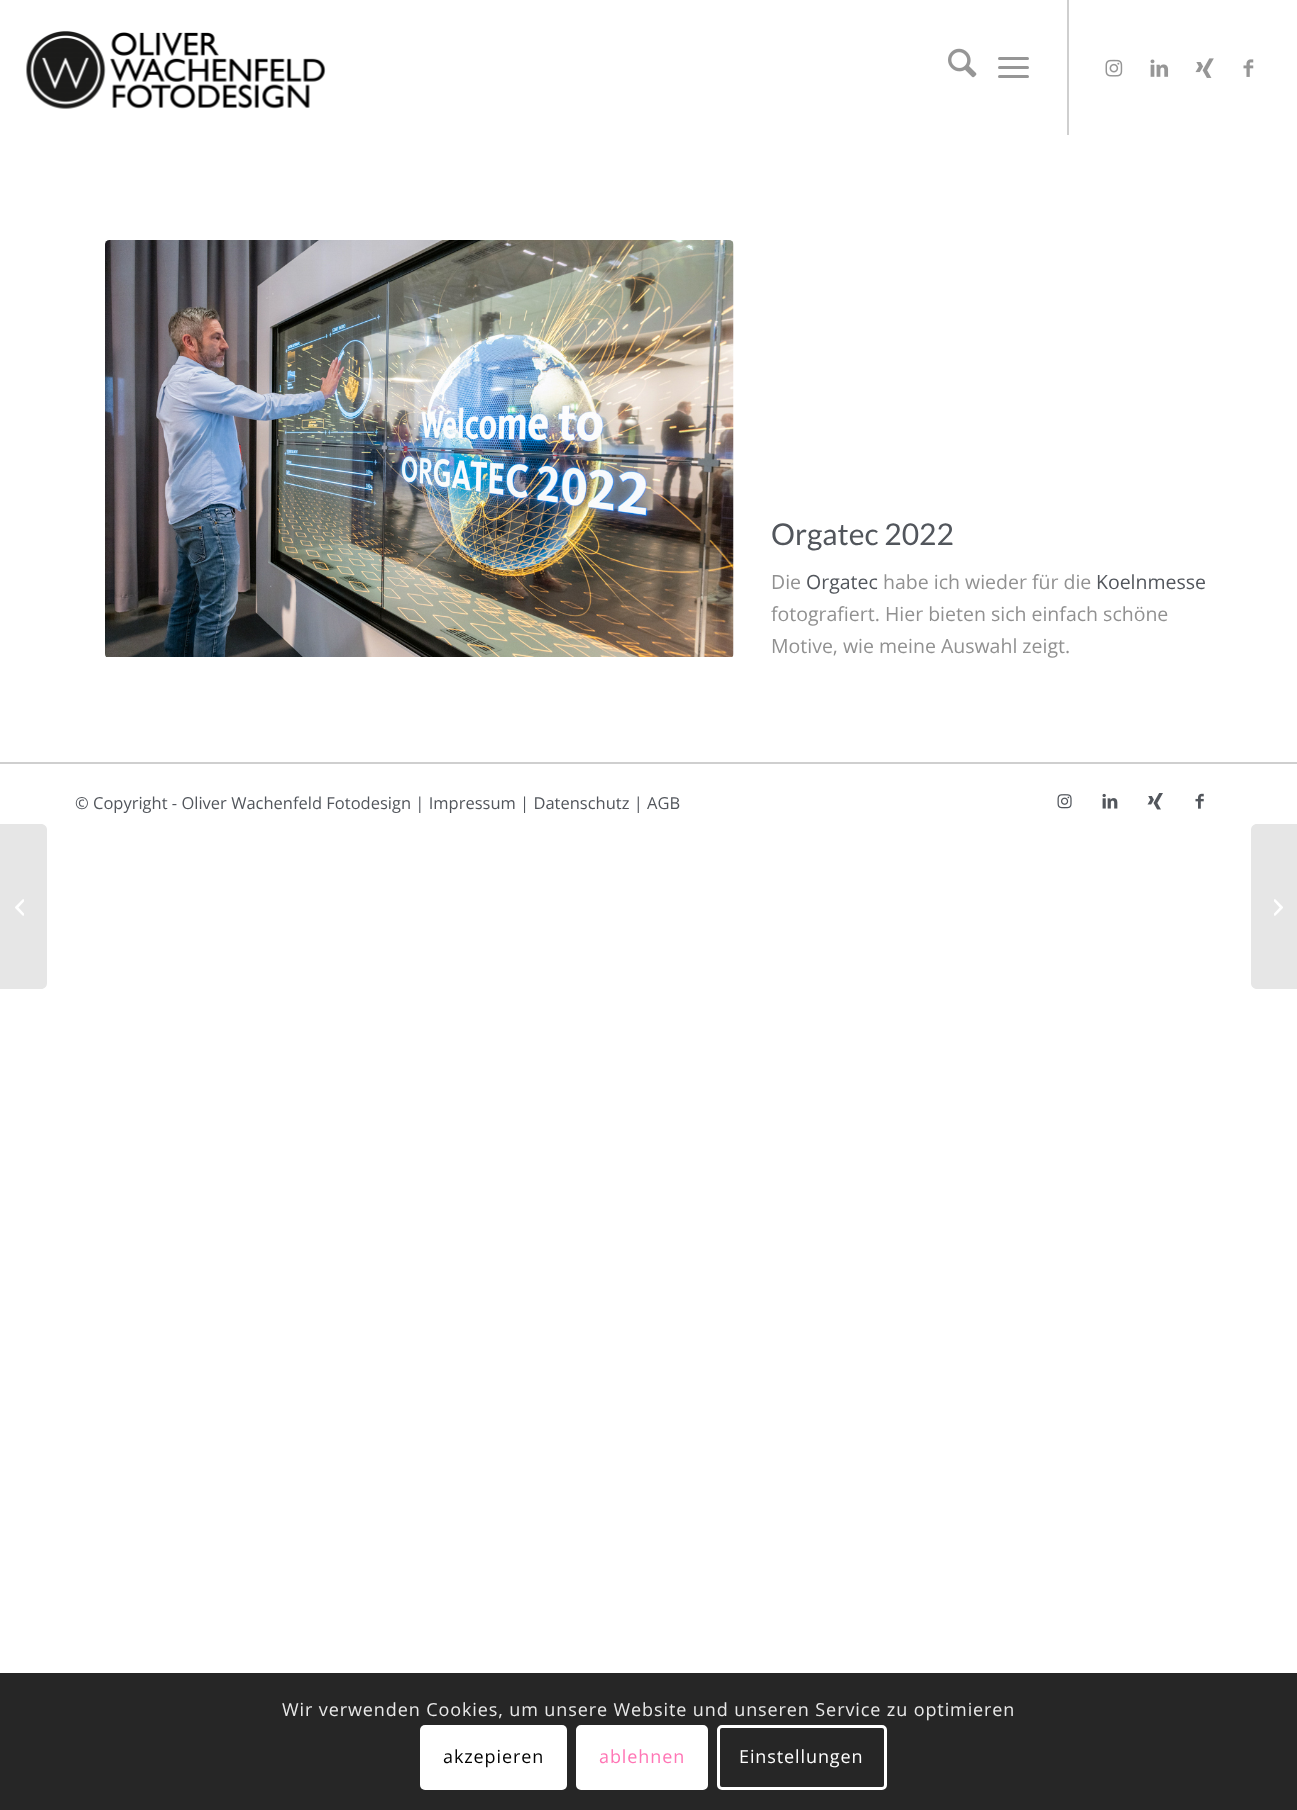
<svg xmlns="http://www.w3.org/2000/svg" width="1297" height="1810">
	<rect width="100%" height="100%" fill="#FFFFFF" />
	<image x="26" y="31" width="300" height="78" href="assets/img1.png" />
	<rect x="1067" y="0" width="2" height="135" fill="#CFCFCF" />
	<image x="948" y="48" width="29" height="30" href="assets/img2.png" />
	<rect x="998" y="66" width="31" height="3" rx="1.5" fill="#969696" />
	<rect x="998" y="57" width="31" height="3" rx="1.5" fill="#969696" />
	<rect x="998" y="75" width="31" height="3" rx="1.5" fill="#969696" />
	<image x="1105" y="59" width="18" height="18" href="assets/img3.png" />
	<image x="1150" y="59" width="19" height="18" href="assets/img4.png" />
	<image x="1195" y="58" width="19" height="20" href="assets/img5.png" />
	<image x="1243" y="59" width="11" height="18" href="assets/img6.png" />
	<image x="105" y="240" width="629" height="417" href="assets/img7.png" />
	<text x="771" y="545" font-family="Lato" font-size="30" fill="#52565C">Orgatec 2022</text>
	<text x="771" y="589" font-family="Open Sans" font-size="19.5" fill="#919191">Die</text>
	<text x="806" y="589" font-family="Open Sans" font-size="19.5" fill="#52565C">Orgatec</text>
	<text x="883" y="589" font-family="Open Sans" font-size="19.5" fill="#919191">habe ich wieder für die</text>
	<text x="1096" y="589" font-family="Open Sans" font-size="19.5" fill="#52565C">Koelnmesse</text>
	<g font-family="Open Sans" font-size="19.5" fill="#919191">
		<text x="771" y="621">fotografiert. Hier bieten sich einfach schöne</text>
		<text x="771" y="653">Motive, wie meine Auswahl zeigt.</text>
	</g>
	<rect x="0" y="762" width="1297" height="2" fill="#CFCFCF" />
	<text x="75" y="809" font-family="Open Sans" font-size="16.5" fill="#52565C">© Copyright - Oliver Wachenfeld Fotodesign | Impressum | Datenschutz | AGB</text>
	<image x="1057" y="794" width="15" height="15" href="assets/img8.png" />
	<image x="1102" y="793" width="16" height="16" href="assets/img9.png" />
	<image x="1147" y="793" width="16" height="17" href="assets/img10.png" />
	<image x="1195" y="793" width="9" height="16" href="assets/img11.png" />
	<path d="M0 824H41C44.5 824 47 826.5 47 830V983C47 986.5 44.5 989 41 989H0Z" fill="#E6E6E6" />
	<image x="15" y="899" width="9" height="17" href="assets/img12.png" />
	<path d="M1257 824H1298V989H1257C1253.5 989 1251 986.5 1251 983V830C1251 826.5 1253.5 824 1257 824Z" fill="#E6E6E6" />
	<image x="1274" y="899" width="9" height="17" href="assets/img13.png" />
	<rect x="0" y="1673" width="1297" height="137" fill="#262626" />
	<text x="282" y="1716" font-family="Open Sans" font-size="18" letter-spacing="0.9" fill="#E9E9E9">Wir verwenden Cookies, um unsere Website und unseren Service zu optimieren</text>
	<rect x="420" y="1725" width="147" height="65" rx="5" fill="#FFFFFF" />
	<text x="443" y="1763" font-family="Open Sans" font-size="18" letter-spacing="0.9" fill="#000000">akzepieren</text>
	<rect x="577.5" y="1726.5" width="129" height="62" rx="3.5" fill="#FFFFFF" stroke="#FFFFFF" stroke-width="3" />
	<text x="599" y="1763" font-family="Open Sans" font-size="18" letter-spacing="0.9" fill="#FF75B5">ablehnen</text>
	<rect x="718.5" y="1726.5" width="167" height="62" rx="3.5" fill="none" stroke="#FFFFFF" stroke-width="3" />
	<text x="739" y="1763" font-family="Open Sans" font-size="18" letter-spacing="0.9" fill="#FFFFFF">Einstellungen</text>
</svg>
